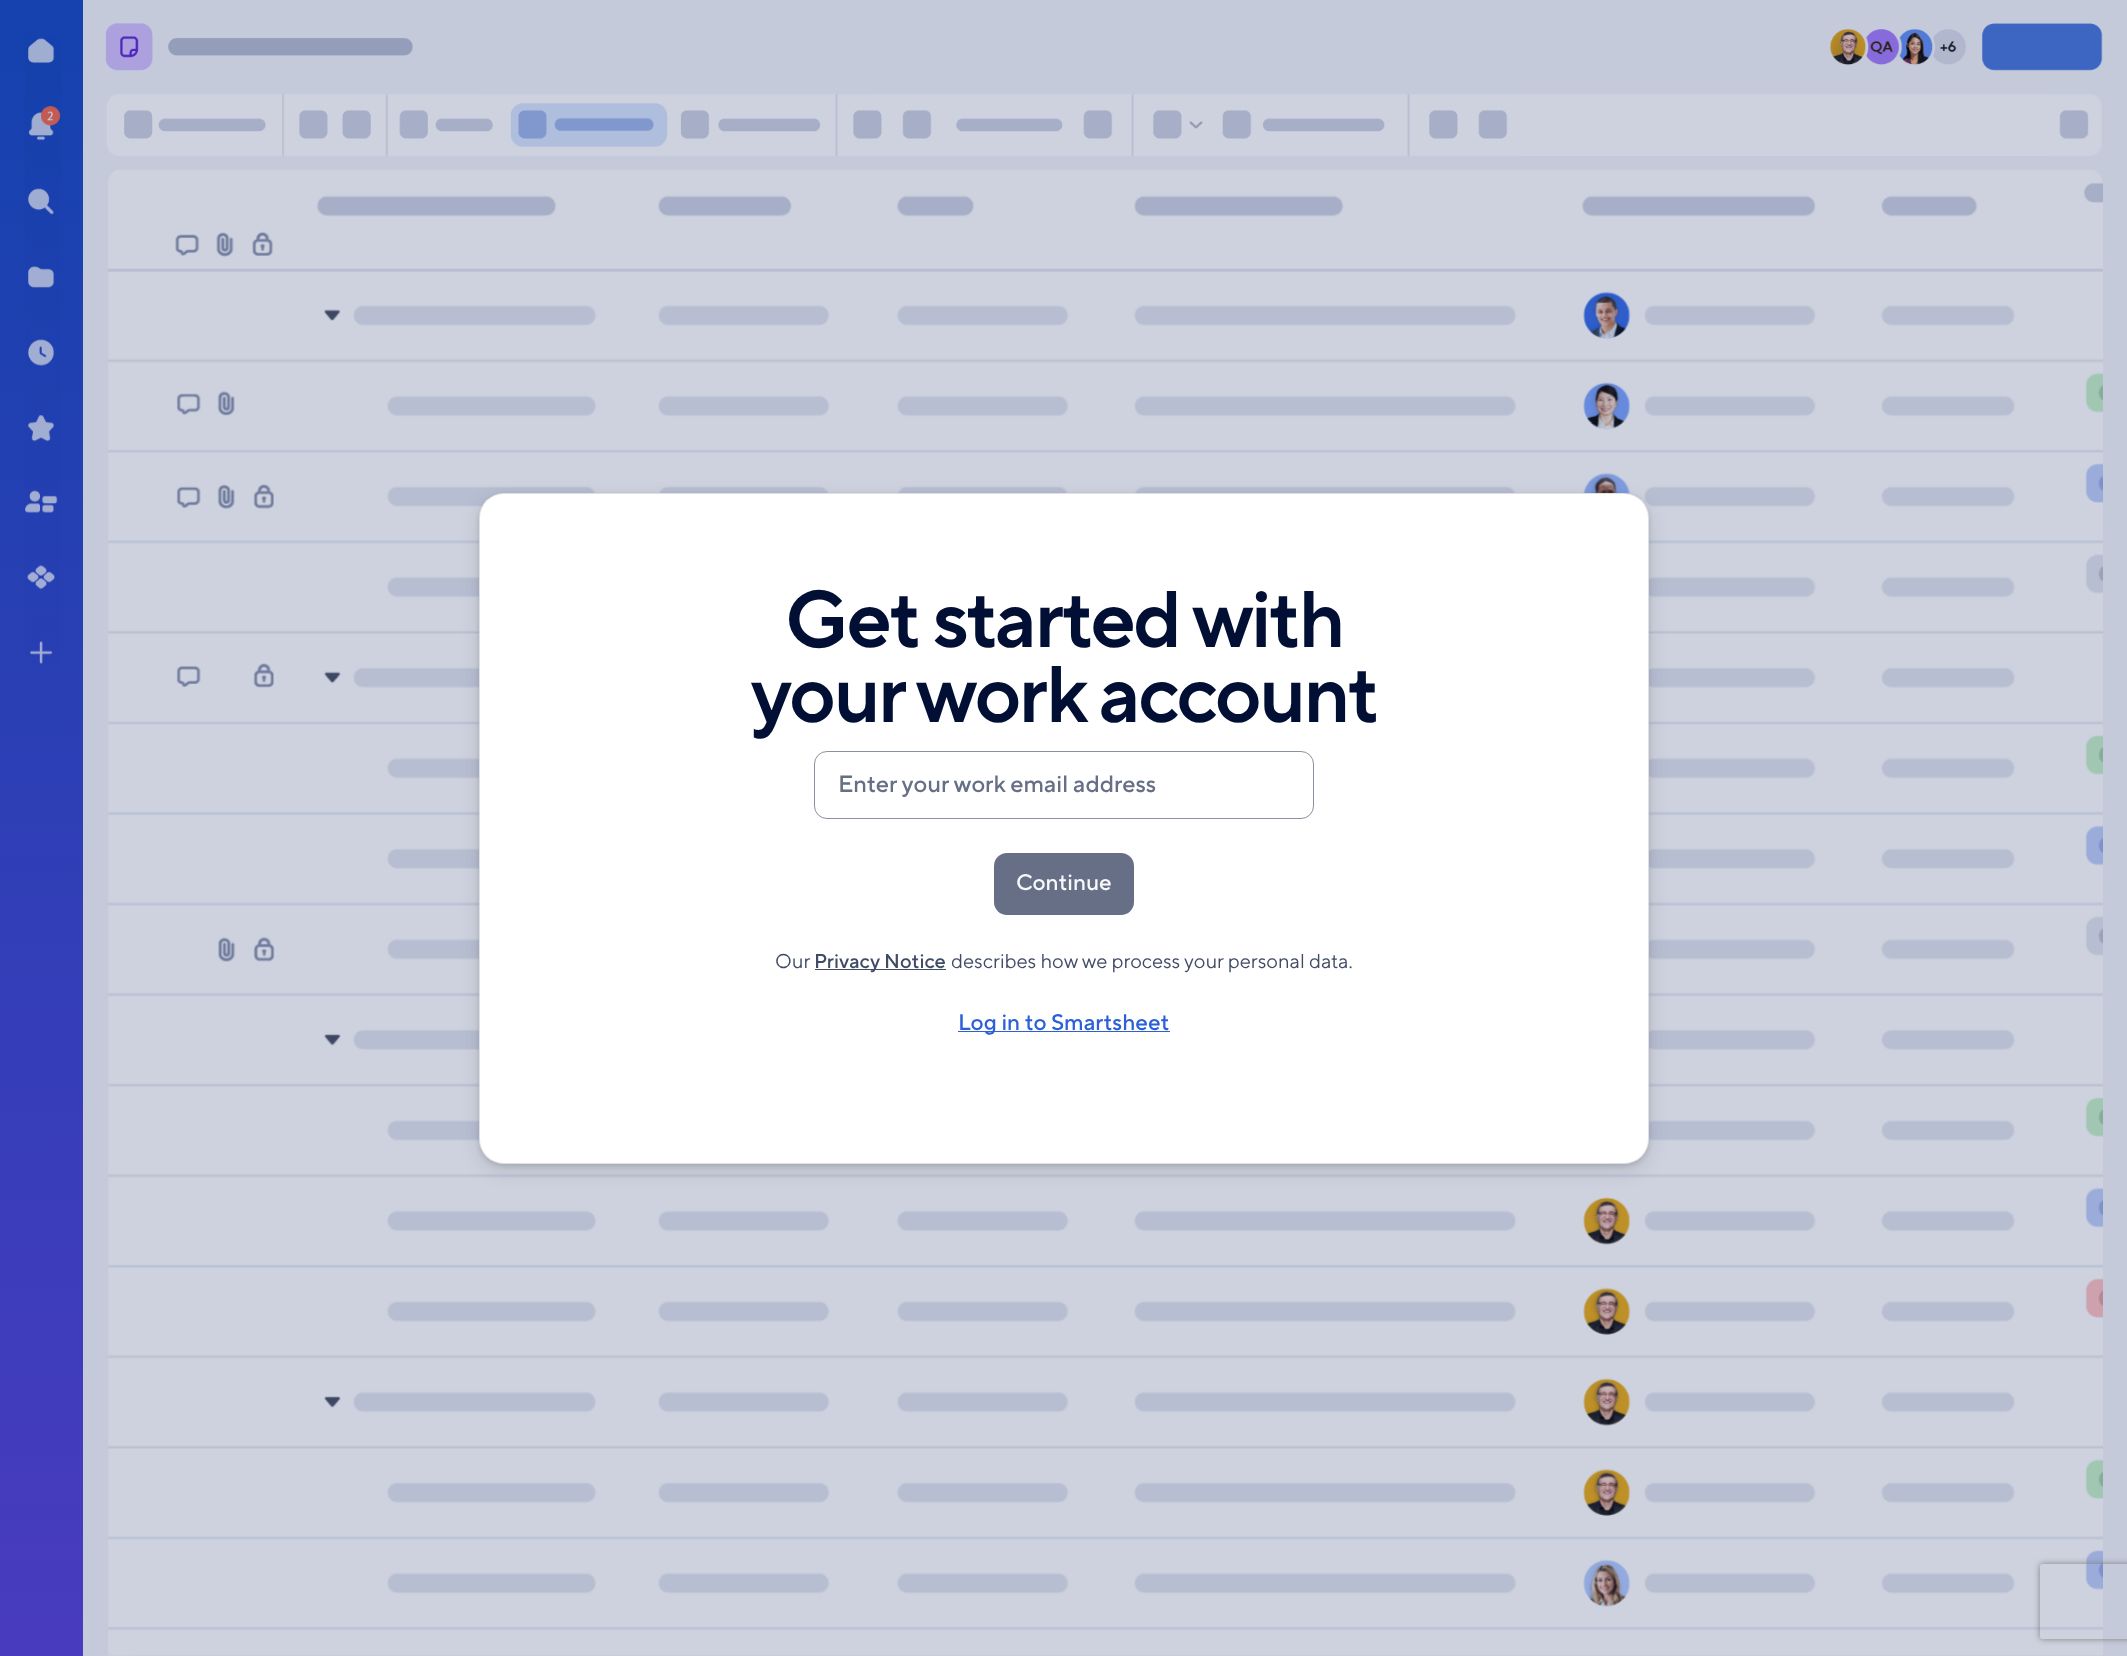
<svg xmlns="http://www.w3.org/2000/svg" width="2127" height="1656">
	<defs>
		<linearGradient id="g1" gradientUnits="userSpaceOnUse" x1="27" y1="-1.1" x2="56" y2="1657"><stop offset="0" stop-color="#1442AE" /><stop offset="1" stop-color="#493BBE" /></linearGradient>
		<clipPath id="clip1"><path d="M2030 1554H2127V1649H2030ZM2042.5 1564H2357.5C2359 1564 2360 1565 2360 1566.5V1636.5C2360 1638 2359 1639 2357.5 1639H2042.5C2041 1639 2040 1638 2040 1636.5V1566.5C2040 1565 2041 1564 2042.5 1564Z" clip-rule="evenodd" /></clipPath>
	</defs>
	<rect width="100%" height="100%" fill="#C4CADA" />
	<rect x="0" y="0" width="83" height="1656" fill="url(#g1)" />
	<image x="25" y="38" width="36" height="626" href="assets/img1.png" />
	<image x="105" y="23" width="339" height="70" href="assets/img2.png" />
	<image x="1733" y="23" width="370" height="70" href="assets/img3.png" />
	<rect x="1525" y="94" width="602" height="62" fill="#CDD2DE" />
	<image x="83" y="94" width="1442" height="62" href="assets/img4.png" />
	<image x="2044" y="94" width="83" height="62" href="assets/img5.png" />
	<image x="108" y="170" width="1995" height="1486" href="assets/img6.png" />
	<rect x="479" y="500" width="1170" height="671" rx="25" fill="#000000" fill-opacity="0.1" filter="blur(10px)" />
	<rect x="479" y="495" width="1170" height="671" rx="25" fill="#000000" fill-opacity="0.12" filter="blur(2.5px)" />
	<rect x="479" y="493" width="1170" height="671" rx="25" fill="#FFFFFF" />
	<rect x="479.5" y="493.5" width="1169" height="670" rx="24.5" fill="none" stroke="#000F33" stroke-opacity="0.13" />
	<g font-family="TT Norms" font-size="80" font-weight="600" letter-spacing="-2.5" fill="#000F33">
		<text x="785" y="647">Get started with</text>
		<text x="751" y="722">your work account</text>
	</g>
	<rect x="814.5" y="751.5" width="499" height="67" rx="12.5" fill="none" stroke="#8A91A1" />
	<text x="838" y="792" font-family="TT Norms" font-size="23.6" font-weight="500" fill="#666F85">Enter your work email address</text>
	<rect x="994" y="853" width="140" height="62" rx="13" fill="#666F85" />
	<text x="1016" y="890" font-family="TT Norms" font-size="22.5" font-weight="500" fill="#F7F8F9">Continue</text>
	<text x="775" y="968" font-family="TT Norms" font-size="20" fill="#404B66">Our</text>
	<rect x="815" y="969" width="131" height="1" fill="#404B66" />
	<text x="814" y="968" font-family="TT Norms" font-size="20" font-weight="500" fill="#404B66">Privacy Notice</text>
	<text x="951" y="968" font-family="TT Norms" font-size="20" fill="#404B66">describes how we process your personal data.</text>
	<rect x="958" y="1031" width="212" height="1" fill="#2D60D7" />
	<text x="958" y="1030" font-family="TT Norms" font-size="22.5" font-weight="500" fill="#2D60D7">Log in to Smartsheet</text>
	<g clip-path="url(#clip1)">
		<rect x="2040" y="1564" width="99" height="75" rx="2.5" fill="#808080" filter="blur(3px)" />
	</g>
</svg>
